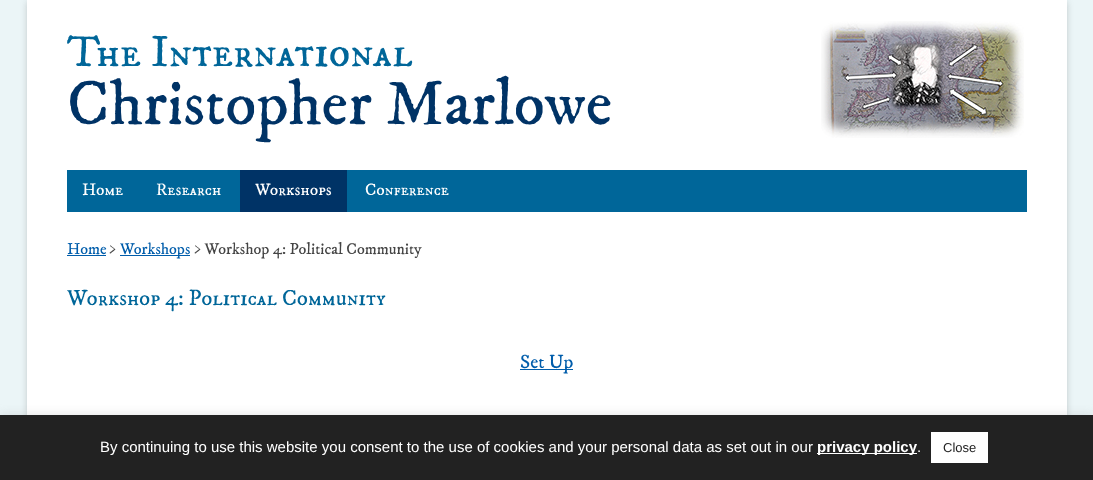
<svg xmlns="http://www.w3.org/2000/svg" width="1093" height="480">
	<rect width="100%" height="100%" fill="#EBF5F7" />
	<rect x="27" y="2" width="1040" height="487" fill="#646464" fill-opacity="0.3" filter="blur(3px)" />
	<rect x="27" y="0" width="1040" height="415" fill="#FFFFFF" />
	<image x="821" y="21" width="203" height="117" href="assets/img1.png" />
	<text x="67" y="66" font-family="IM FELL DW Pica SC" font-size="44" fill="#006699">The International</text>
	<text x="67" y="124" font-family="IM FELL DW Pica" font-size="64" fill="#003366">Christopher Marlowe</text>
	<rect x="67" y="170" width="960" height="42" fill="#006699" />
	<g font-family="IM FELL DW Pica SC" font-size="17" fill="#FFFFFF">
		<text x="82" y="195">Home</text>
		<text x="156" y="195">Research</text>
	</g>
	<rect x="240" y="170" width="107" height="42" fill="#003366" />
	<g font-family="IM FELL DW Pica SC" font-size="17" fill="#FFFFFF">
		<text x="255" y="195">Workshops</text>
		<text x="365" y="195">Conference</text>
	</g>
	<text x="67" y="254" font-family="IM FELL DW Pica" font-size="16" fill="#005DAB">Home</text>
	<rect x="67" y="255" width="39" height="1" fill="#005DAB" />
	<text x="109" y="254" font-family="IM FELL DW Pica" font-size="16" fill="#444444">&gt;</text>
	<rect x="120" y="255" width="70" height="1" fill="#005DAB" />
	<text x="120" y="254" font-family="IM FELL DW Pica" font-size="16" fill="#005DAB">Workshops</text>
	<text x="194" y="254" font-family="IM FELL DW Pica" font-size="16" fill="#444444">&gt; Workshop 4: Political Community</text>
	<text x="67" y="305" font-family="IM FELL DW Pica SC" font-size="22.4" fill="#006699">Workshop 4: Political Community</text>
	<rect x="520" y="369" width="53" height="1" fill="#005DAB" />
	<text x="520" y="368" font-family="IM FELL DW Pica" font-size="19.5" fill="#005DAB">Set Up</text>
	<rect x="0" y="414" width="1093" height="65" fill="#ACABAB" fill-opacity="0.3" filter="blur(5px)" />
	<rect x="0" y="415" width="1093" height="65" fill="#222222" />
	<text x="100" y="452" font-family="Liberation Sans" font-size="15" fill="#FFFFFF">By continuing to use this website you consent to the use of cookies and your personal data as set out in our</text>
	<rect x="817" y="453" width="100" height="1" fill="#FFFFFF" />
	<text x="817" y="452" font-family="Liberation Sans" font-size="15" font-weight="700" fill="#FFFFFF">privacy policy</text>
	<text x="917" y="452" font-family="Liberation Sans" font-size="15" fill="#FFFFFF">.</text>
	<rect x="931" y="432" width="57" height="31" fill="#FFFFFF" />
	<text x="943" y="452" font-family="Liberation Sans" font-size="13" fill="#222222">Close</text>
</svg>
